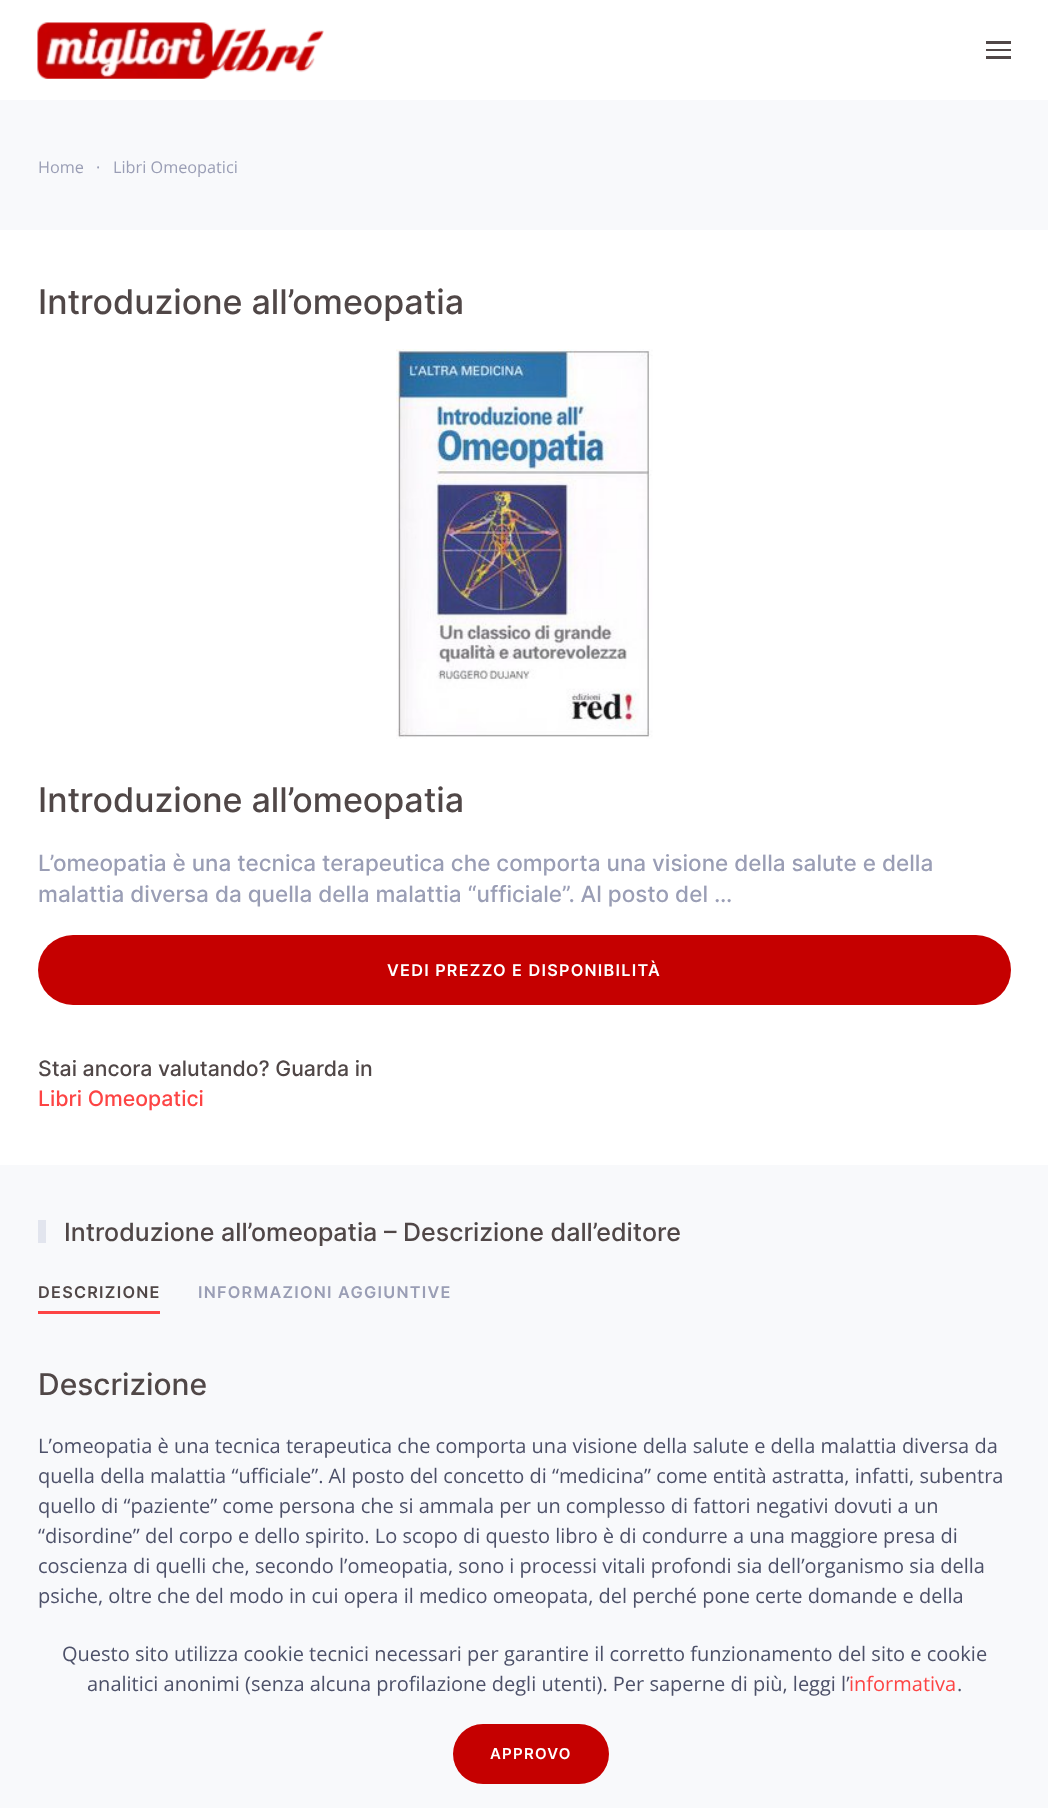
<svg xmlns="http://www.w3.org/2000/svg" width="1048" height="1808">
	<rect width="100%" height="100%" fill="#FFFFFF" />
	<image x="37" y="22" width="287" height="57" href="assets/img1.png" />
	<rect x="986" y="41" width="25" height="3" fill="#504747" />
	<rect x="986" y="49" width="25" height="2" fill="#504747" />
	<rect x="986" y="56" width="25" height="3" fill="#504747" />
	<rect x="0" y="100" width="1048" height="130" fill="#F8F9FB" />
	<g font-family="Open Sans" font-size="16.25" fill="#9A9EB5">
		<text x="38" y="173">Home</text>
		<text x="96" y="173">·</text>
		<text x="113" y="173">Libri Omeopatici</text>
	</g>
	<text x="38" y="314" font-family="Inter" font-size="34" font-weight="500" fill="#504747">Introduzione all’omeopatia</text>
	<image x="396" y="349" width="257" height="390" href="assets/img2.png" />
	<text x="38" y="812" font-family="Inter" font-size="34" font-weight="500" fill="#504747">Introduzione all’omeopatia</text>
	<g font-family="Inter" font-size="22.5" font-weight="500" fill="#9A9EB5">
		<text x="38" y="871">L’omeopatia è una tecnica terapeutica che comporta una visione della salute e della</text>
		<text x="38" y="902">malattia diversa da quella della malattia “ufficiale”. Al posto del …</text>
	</g>
	<rect x="38" y="935" width="973" height="70" rx="35" fill="#C50000" />
	<text x="387" y="976" font-family="Inter" font-size="16.25" font-weight="600" letter-spacing="1.25" fill="#FFFFFF">VEDI PREZZO E DISPONIBILITÀ</text>
	<text x="38" y="1076" font-family="Inter" font-size="21.25" font-weight="500" fill="#504747">Stai ancora valutando? Guarda in</text>
	<text x="38" y="1106" font-family="Inter" font-size="21.25" font-weight="500" fill="#FD4444">Libri Omeopatici</text>
	<rect x="0" y="1165" width="1048" height="643" fill="#F8F9FB" />
	<rect x="38" y="1220" width="8" height="23" fill="#E2E5EE" />
	<text x="64" y="1241" font-family="Inter" font-size="25" font-weight="500" fill="#504747">Introduzione all’omeopatia – Descrizione dall’editore</text>
	<rect x="38" y="1311" width="122" height="3" fill="#FD4444" />
	<text x="38" y="1298" font-family="Inter" font-size="16.25" font-weight="600" letter-spacing="1.25" fill="#504747">DESCRIZIONE</text>
	<text x="198" y="1298" font-family="Inter" font-size="16.25" font-weight="600" letter-spacing="1.25" fill="#9A9EB5">INFORMAZIONI AGGIUNTIVE</text>
	<text x="38" y="1395" font-family="Inter" font-size="30" font-weight="500" fill="#504747">Descrizione</text>
	<g font-family="Open Sans" font-size="20" fill="#4D5169">
		<text x="38" y="1453">L’omeopatia è una tecnica terapeutica che comporta una visione della salute e della malattia diversa da</text>
		<text x="38" y="1483">quella della malattia “ufficiale”. Al posto del concetto di “medicina” come entità astratta, infatti, subentra</text>
		<text x="38" y="1513">quello di “paziente” come persona che si ammala per un complesso di fattori negativi dovuti a un</text>
		<text x="38" y="1543">“disordine” del corpo e dello spirito. Lo scopo di questo libro è di condurre a una maggiore presa di</text>
		<text x="38" y="1573">coscienza di quelli che, secondo l’omeopatia, sono i processi vitali profondi sia dell’organismo sia della</text>
		<text x="38" y="1603">psiche, oltre che del modo in cui opera il medico omeopata, del perché pone certe domande e della</text>
		<text x="62" y="1661">Questo sito utilizza cookie tecnici necessari per garantire il corretto funzionamento del sito e cookie</text>
		<text x="87" y="1691">analitici anonimi (senza alcuna profilazione degli utenti). Per saperne di più, leggi l’</text>
	</g>
	<text x="849" y="1691" font-family="Open Sans" font-size="20" fill="#FD4444">informativa</text>
	<text x="957" y="1691" font-family="Open Sans" font-size="20" fill="#4D5169">.</text>
	<rect x="453" y="1724" width="156" height="60" rx="30" fill="#C50000" />
	<text x="490" y="1759" font-family="Inter" font-size="15" font-weight="600" letter-spacing="1.25" fill="#FFFFFF">APPROVO</text>
</svg>
